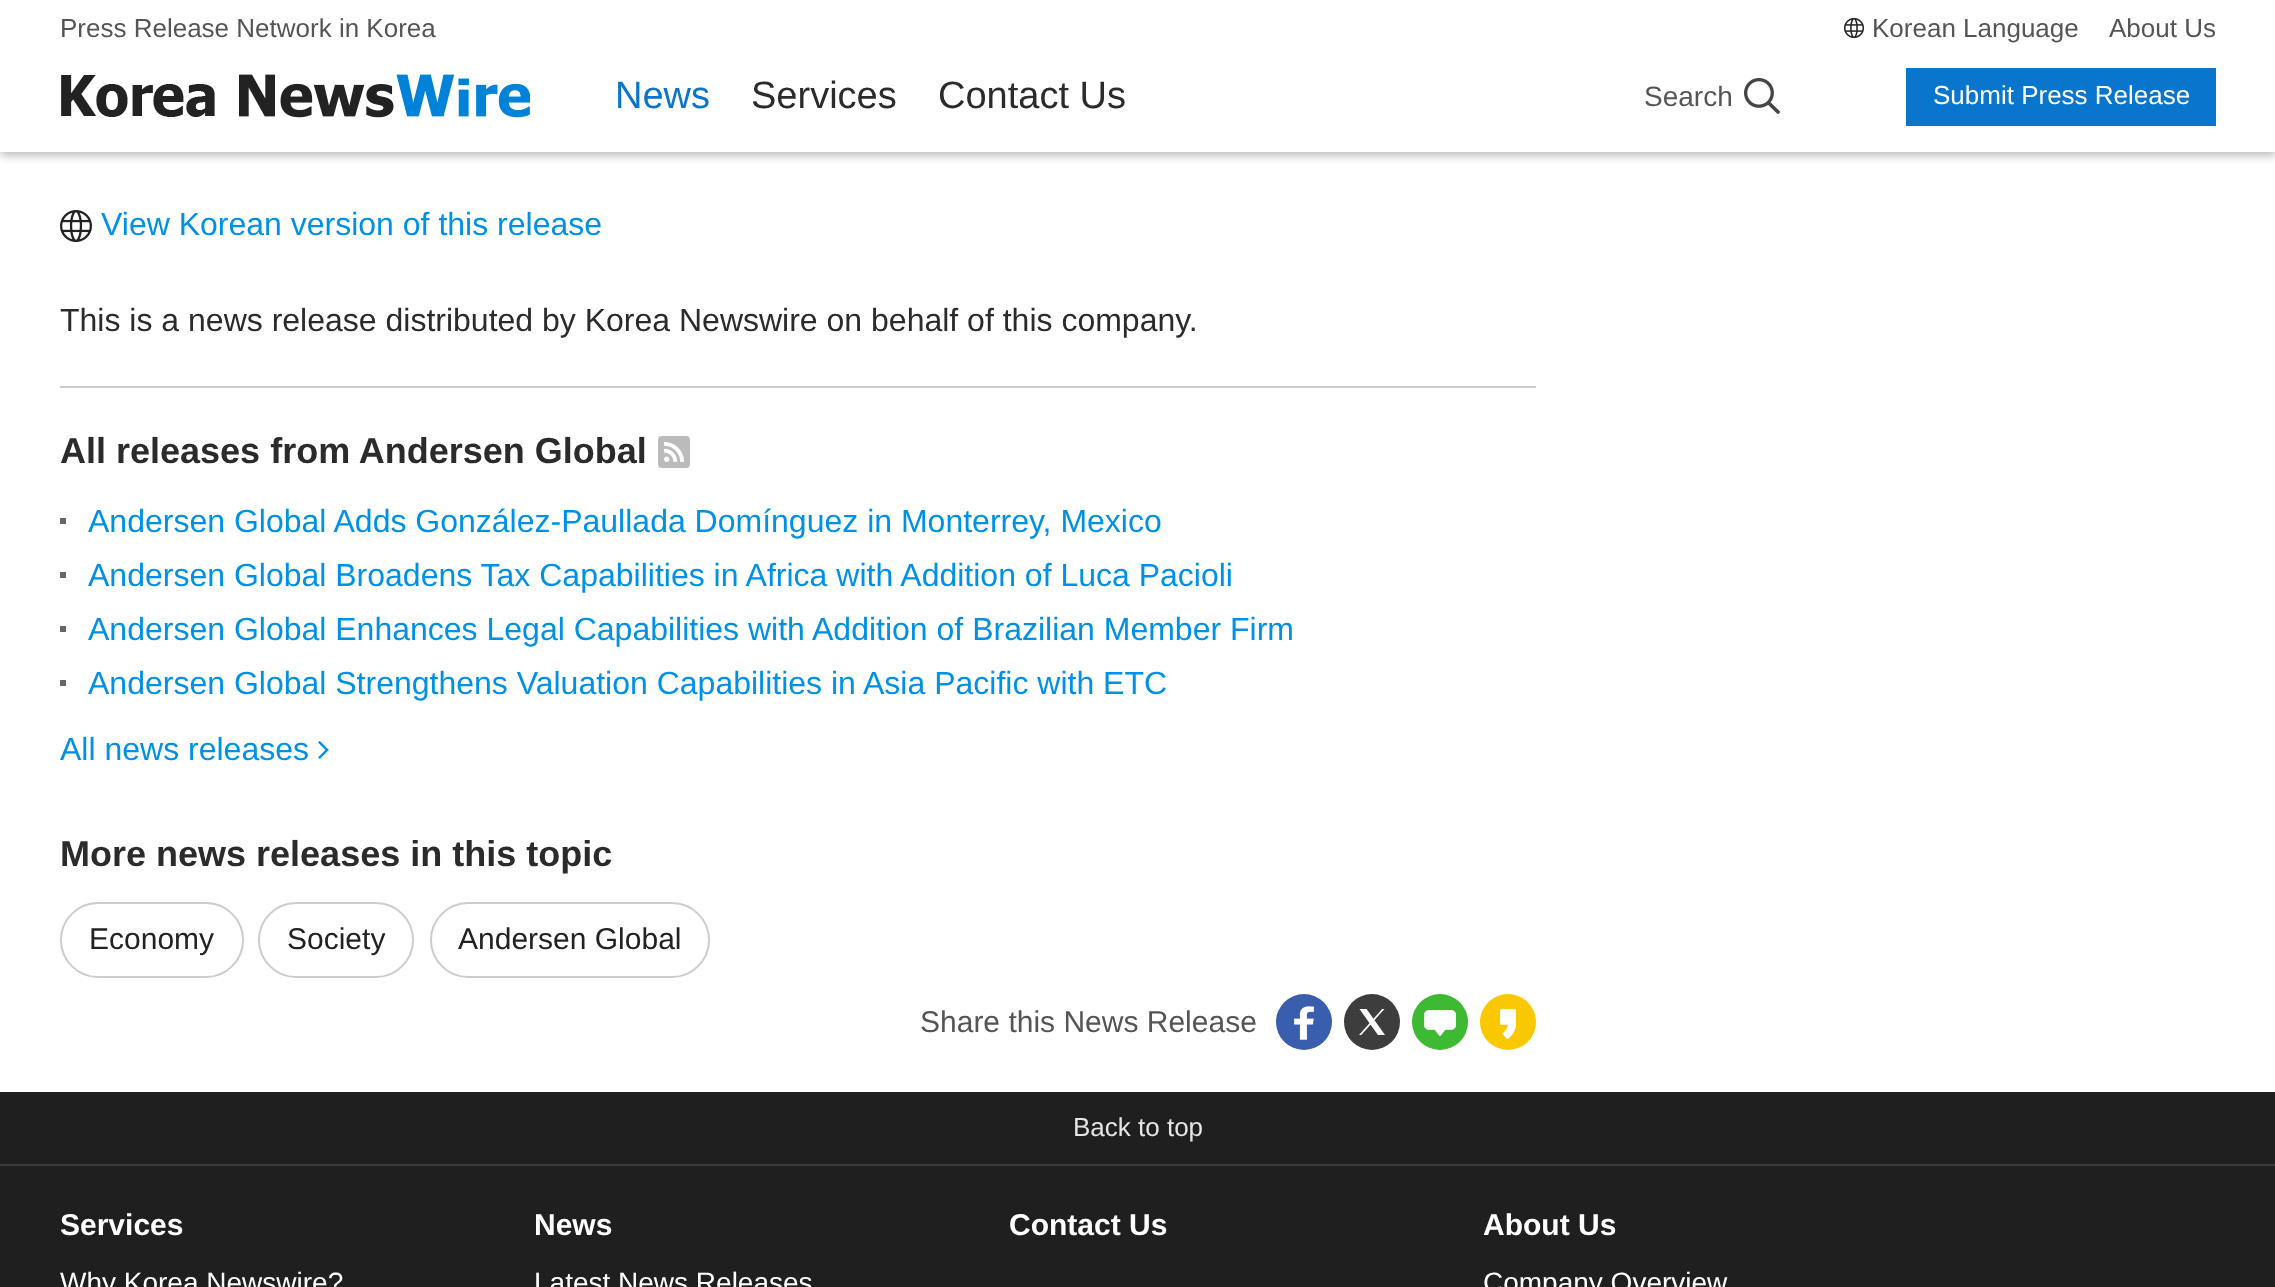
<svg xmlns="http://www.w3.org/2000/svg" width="2275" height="1287">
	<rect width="100%" height="100%" fill="#FFFFFF" />
	<rect x="0" y="4" width="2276" height="152" fill="#000000" fill-opacity="0.25" filter="blur(4px)" />
	<rect x="0" y="0" width="2275" height="152" fill="#FFFFFF" />
	<text x="60" y="37" font-family="Liberation Sans" font-size="26" fill="#555555">Press Release Network in Korea</text>
	<image x="1844" y="18" width="20" height="20" href="assets/img1.png" />
	<g font-family="Liberation Sans" font-size="26" fill="#555555">
		<text x="1872" y="37">Korean Language</text>
		<text x="2109" y="37">About Us</text>
	</g>
	<image x="61" y="74" width="470" height="44" href="assets/img2.png" />
	<text x="615" y="108" font-family="Liberation Sans" font-size="38" fill="#0A75CC">News</text>
	<g font-family="Liberation Sans" font-size="38" fill="#2B2B2B">
		<text x="751" y="108">Services</text>
		<text x="938" y="108">Contact Us</text>
	</g>
	<text x="1644" y="106" font-family="Liberation Sans" font-size="28" fill="#555555">Search</text>
	<image x="1744" y="78" width="36" height="36" href="assets/img3.png" />
	<rect x="1906" y="68" width="310" height="58" fill="#0A75CC" />
	<text x="1933" y="104" font-family="Liberation Sans" font-size="26" fill="#FFFFFF">Submit Press Release</text>
	<rect x="60" y="386" width="1476" height="2" fill="#CCCCCC" />
	<image x="60" y="210" width="32" height="32" href="assets/img4.png" />
	<text x="101" y="235" font-family="Liberation Sans" font-size="32" fill="#0091E6">View Korean version of this release</text>
	<text x="60" y="331" font-family="Liberation Sans" font-size="32" fill="#2B2B2B">This is a news release distributed by Korea Newswire on behalf of this company.</text>
	<text x="60" y="463" font-family="Liberation Sans" font-size="36" font-weight="700" fill="#2B2B2B">All releases from Andersen Global</text>
	<rect x="658" y="436" width="32" height="32" rx="4" fill="#BBBBBB" />
	<image x="664" y="442" width="20" height="20" href="assets/img5.png" />
	<rect x="60" y="518" width="6" height="6" fill="#666666" />
	<text x="88" y="532" font-family="Liberation Sans" font-size="32" fill="#0091E6">Andersen Global Adds González-Paullada Domínguez in Monterrey, Mexico</text>
	<rect x="60" y="572" width="6" height="6" fill="#666666" />
	<text x="88" y="586" font-family="Liberation Sans" font-size="32" fill="#0091E6">Andersen Global Broadens Tax Capabilities in Africa with Addition of Luca Pacioli</text>
	<rect x="60" y="626" width="6" height="6" fill="#666666" />
	<text x="88" y="640" font-family="Liberation Sans" font-size="32" fill="#0091E6">Andersen Global Enhances Legal Capabilities with Addition of Brazilian Member Firm</text>
	<rect x="60" y="680" width="6" height="6" fill="#666666" />
	<g font-family="Liberation Sans" font-size="32" fill="#0091E6">
		<text x="88" y="694">Andersen Global Strengthens Valuation Capabilities in Asia Pacific with ETC</text>
		<text x="60" y="760">All news releases</text>
	</g>
	<image x="318" y="741" width="11" height="18" href="assets/img6.png" />
	<text x="60" y="866" font-family="Liberation Sans" font-size="36" font-weight="700" fill="#2B2B2B">More news releases in this topic</text>
	<rect x="61" y="903" width="182" height="74" rx="37" fill="none" stroke="#CCCCCC" stroke-width="2" />
	<text x="89" y="949" font-family="Liberation Sans" font-size="30" fill="#222222">Economy</text>
	<rect x="259" y="903" width="154" height="74" rx="37" fill="none" stroke="#CCCCCC" stroke-width="2" />
	<text x="287" y="949" font-family="Liberation Sans" font-size="30" fill="#222222">Society</text>
	<rect x="431" y="903" width="278" height="74" rx="37" fill="none" stroke="#CCCCCC" stroke-width="2" />
	<text x="458" y="949" font-family="Liberation Sans" font-size="30" fill="#222222">Andersen Global</text>
	<text x="920" y="1032" font-family="Liberation Sans" font-size="30" fill="#555555">Share this News Release</text>
	<circle cx="1304" cy="1022" r="28" fill="#385EAD" />
	<image x="1294" y="1006" width="20" height="34" href="assets/img7.png" />
	<circle cx="1372" cy="1022" r="28" fill="#3D3D3D" />
	<image x="1359" y="1009" width="26" height="26" href="assets/img8.png" />
	<circle cx="1440" cy="1022" r="28" fill="#3DB933" />
	<image x="1424" y="1010" width="32" height="26" href="assets/img9.png" />
	<circle cx="1508" cy="1022" r="28" fill="#FAC800" />
	<image x="1500" y="1009" width="16" height="30" href="assets/img10.png" />
	<rect x="0" y="1092" width="2275" height="72" fill="#1F1F1F" />
	<rect x="0" y="1164" width="2275" height="2" fill="#3A3A3A" />
	<text x="1073" y="1136" font-family="Liberation Sans" font-size="26" fill="#E5E5E5">Back to top</text>
	<rect x="0" y="1166" width="2275" height="121" fill="#1F1F1F" />
	<text x="60" y="1235" font-family="Liberation Sans" font-size="30" font-weight="700" fill="#FFFFFF">Services</text>
	<text x="60" y="1292" font-family="Liberation Sans" font-size="28" fill="#FFFFFF">Why Korea Newswire?</text>
	<text x="534" y="1235" font-family="Liberation Sans" font-size="30" font-weight="700" fill="#FFFFFF">News</text>
	<text x="534" y="1292" font-family="Liberation Sans" font-size="28" fill="#FFFFFF">Latest News Releases</text>
	<g font-family="Liberation Sans" font-size="30" font-weight="700" fill="#FFFFFF">
		<text x="1009" y="1235">Contact Us</text>
		<text x="1483" y="1235">About Us</text>
	</g>
	<text x="1483" y="1292" font-family="Liberation Sans" font-size="28" fill="#FFFFFF">Company Overview</text>
</svg>
